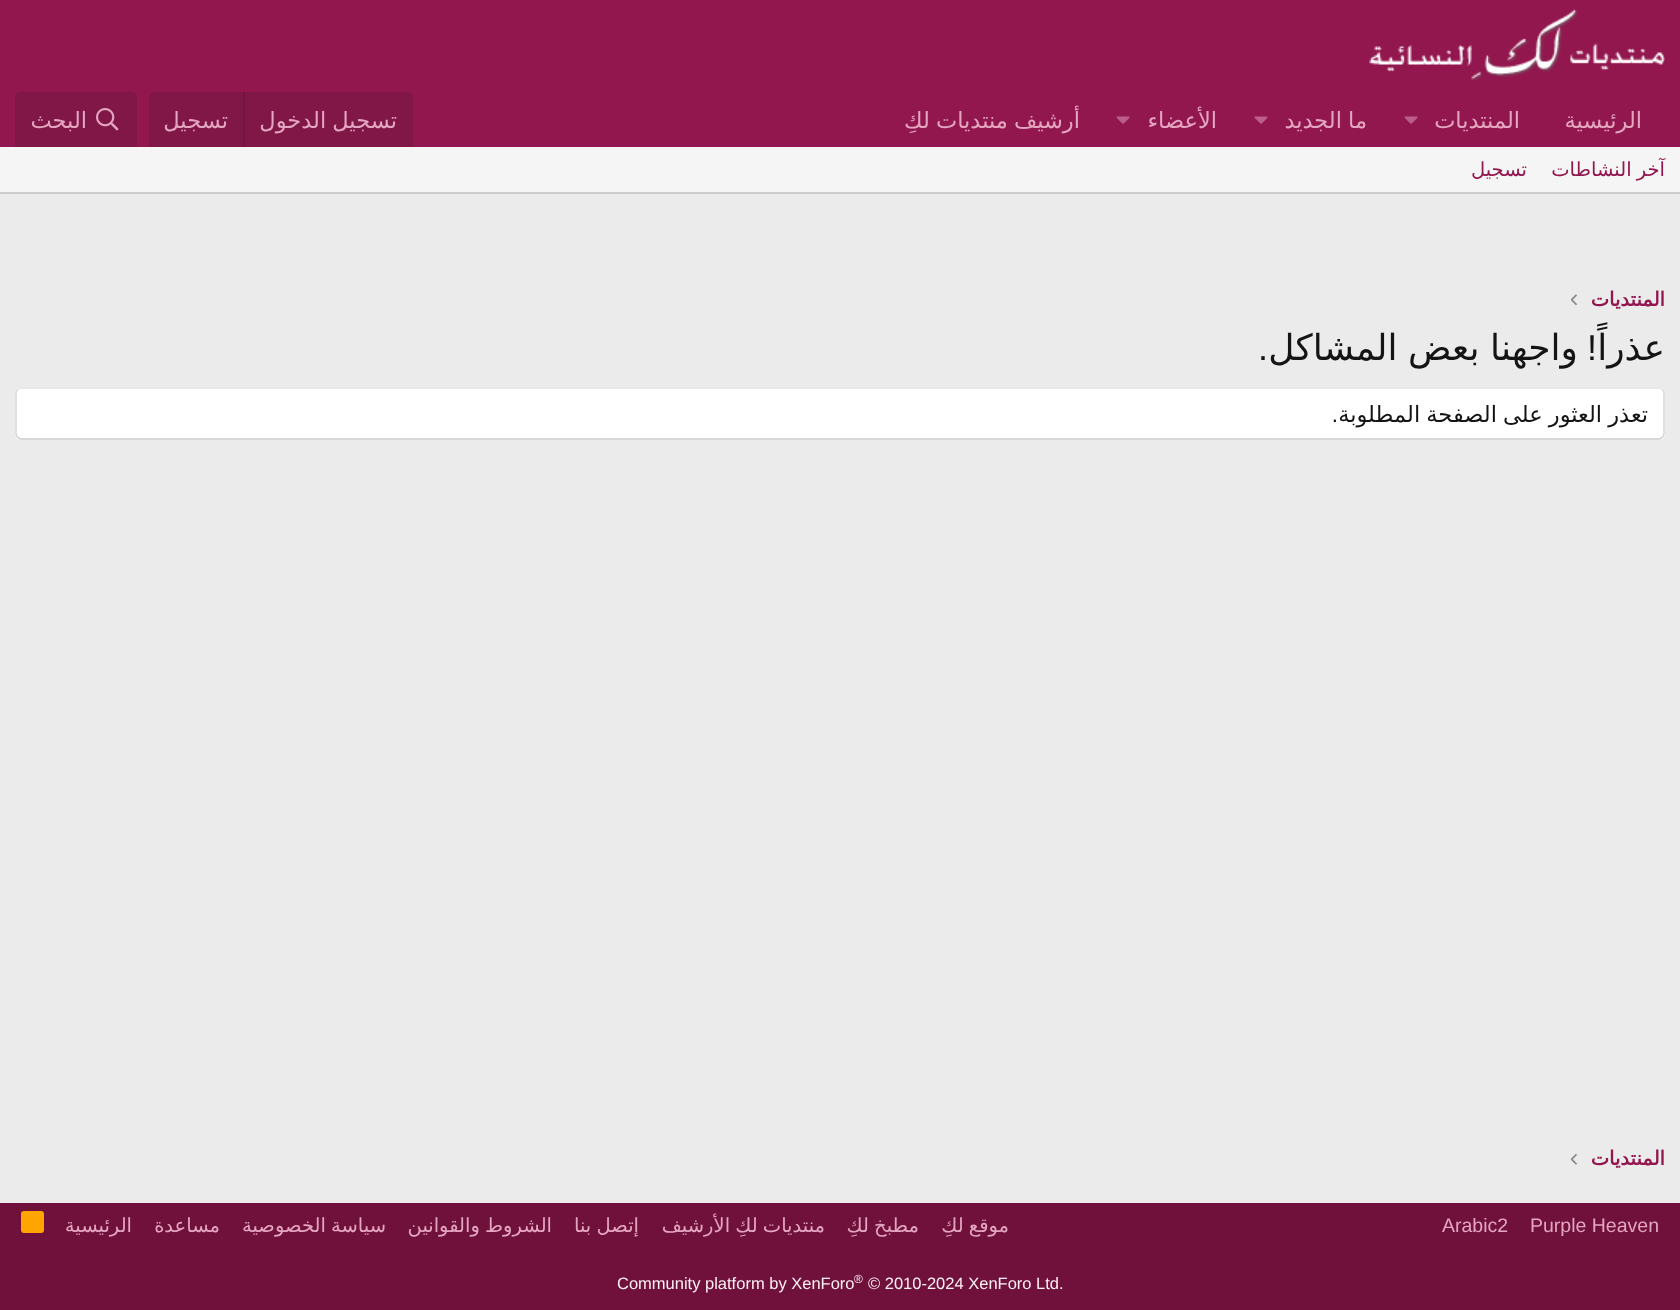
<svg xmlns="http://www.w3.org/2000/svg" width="1680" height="1310">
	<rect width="100%" height="100%" fill="#EBEBEB" />
	<rect x="0" y="0" width="1680" height="147" fill="#93174F" />
	<image x="1369" y="9" width="296" height="72" href="assets/img1.png" />
	<g font-family="DejaVu Sans" font-size="22.5" direction="rtl" fill="#E4A5C1">
		<text x="1642" y="128">الرئيسية</text>
		<text x="1520" y="128">المنتديات</text>
	</g>
	<image x="1404" y="116" width="14" height="8" href="assets/img2.png" />
	<text x="1367" y="128" word-spacing="-1" font-family="DejaVu Sans" font-size="22.5" direction="rtl" fill="#E4A5C1">ما الجديد</text>
	<image x="1254" y="116" width="14" height="8" href="assets/img2.png" />
	<text x="1217" y="128" font-family="DejaVu Sans" font-size="22.5" direction="rtl" fill="#E4A5C1">الأعضاء</text>
	<image x="1116" y="116" width="14" height="8" href="assets/img2.png" />
	<text x="1080" y="128" word-spacing="-1" font-family="DejaVu Sans" font-size="22.5" direction="rtl" fill="#E4A5C1">أرشيف منتديات لكِ</text>
	<path d="M155 92H407C410.5 92 413 94.5 413 98V147H149V98C149 94.5 151.5 92 155 92Z" fill="#801746" />
	<text x="397" y="128" word-spacing="-1" font-family="DejaVu Sans" font-size="22.5" direction="rtl" fill="#E4A5C1">تسجيل الدخول</text>
	<rect x="243" y="92" width="2" height="55" fill="#70173F" />
	<text x="228" y="128" font-family="DejaVu Sans" font-size="22.5" direction="rtl" fill="#E4A5C1">تسجيل</text>
	<path d="M21 92H131C134.5 92 137 94.5 137 98V147H15V98C15 94.5 17.5 92 21 92Z" fill="#801746" />
	<image x="96" y="108" width="23" height="23" href="assets/img3.png" />
	<text x="87" y="128" font-family="DejaVu Sans" font-size="22.5" direction="rtl" fill="#E4A5C1">البحث</text>
	<rect x="0" y="147" width="1680" height="45" fill="#F5F5F5" />
	<rect x="0" y="192" width="1680" height="2" fill="#CCCCCC" />
	<g font-family="DejaVu Sans" font-size="19.5" direction="rtl" fill="#93174F">
		<text x="1665" y="176" word-spacing="-1">آخر النشاطات</text>
		<text x="1527" y="176">تسجيل</text>
	</g>
	<text x="1665" y="306" font-family="DejaVu Sans" font-size="19.5" font-weight="700" direction="rtl" fill="#93174F">المنتديات</text>
	<image x="1571" y="294" width="6" height="12" href="assets/img4.png" />
	<text x="1665" y="360" font-family="DejaVu Sans" font-size="36" direction="rtl" fill="#141414">عذراً</text>
	<text x="1597" y="360" font-family="Liberation Sans" font-size="36" direction="rtl" fill="#141414">!</text>
	<text x="1578" y="360" word-spacing="-1" font-family="DejaVu Sans" font-size="36" direction="rtl" fill="#141414">واجهنا بعض المشاكل</text>
	<text x="1268" y="360" font-family="Liberation Sans" font-size="36" direction="rtl" fill="#141414">.</text>
	<rect x="15" y="387" width="1650" height="53" rx="6" fill="#FFFFFF" />
	<path d="M17.5 389.5C18.5 388.5 19.5 388 21 388H1659C1660.5 388 1661.5 388.5 1662.5 389.5" fill="none" stroke="#E0E0E0" stroke-width="1.5" />
	<path d="M1662.5 389.5C1663.5 390.5 1664 391.5 1664 393V433.5C1664 435 1663.5 436 1662.5 437" fill="none" stroke="#D6D6D6" stroke-width="1.5" />
	<path d="M1662.5 437C1661.5 438 1660.5 439 1659 439H21C19.5 439 18.5 438 17.5 437" fill="none" stroke="#CCCCCC" stroke-width="1.5" />
	<path d="M17.5 437C16.5 436 16 435 16 433.5V393C16 391.5 16.5 390.5 17.5 389.5" fill="none" stroke="#D6D6D6" stroke-width="1.5" />
	<text x="1648" y="422" word-spacing="-1" font-family="DejaVu Sans" font-size="22.5" direction="rtl" fill="#141414">تعذر العثور على الصفحة المطلوبة</text>
	<text x="1338" y="422" font-family="Liberation Sans" font-size="22.5" direction="rtl" fill="#141414">.</text>
	<text x="1665" y="1165" font-family="DejaVu Sans" font-size="19.5" font-weight="700" direction="rtl" fill="#93174F">المنتديات</text>
	<image x="1571" y="1153" width="6" height="12" href="assets/img5.png" />
	<rect x="0" y="1203" width="1680" height="107" fill="#70113C" />
	<g font-family="Liberation Sans" font-size="19.5" fill="#E4A5C1">
		<text x="1530" y="1232">Purple Heaven</text>
		<text x="1442" y="1232">Arabic2</text>
	</g>
	<g font-family="DejaVu Sans" font-size="19.5" direction="rtl" fill="#E4A5C1">
		<text x="1009" y="1232" word-spacing="-1">موقع لكِ</text>
		<text x="919" y="1232" word-spacing="-1">مطبخ لكِ</text>
		<text x="825" y="1232" word-spacing="-1">منتديات لكِ الأرشيف</text>
		<text x="639" y="1232" word-spacing="-1">إتصل بنا</text>
		<text x="552" y="1232" word-spacing="-1">الشروط والقوانين</text>
		<text x="386" y="1232" word-spacing="-1">سياسة الخصوصية</text>
		<text x="220" y="1232">مساعدة</text>
		<text x="132" y="1232">الرئيسية</text>
	</g>
	<rect x="21" y="1211" width="23" height="22" rx="3" fill="#FFA500" />
	<text x="868" y="1289" font-family="Liberation Sans" font-size="16.5" fill="#FCF0F5">© 2010-2024 XenForo Ltd.</text>
	<text x="854" y="1283" font-family="Liberation Sans" font-size="12" fill="#FCF0F5">®</text>
	<text x="617" y="1289" font-family="Liberation Sans" font-size="16.5" fill="#FCF0F5">Community platform by XenForo</text>
</svg>
